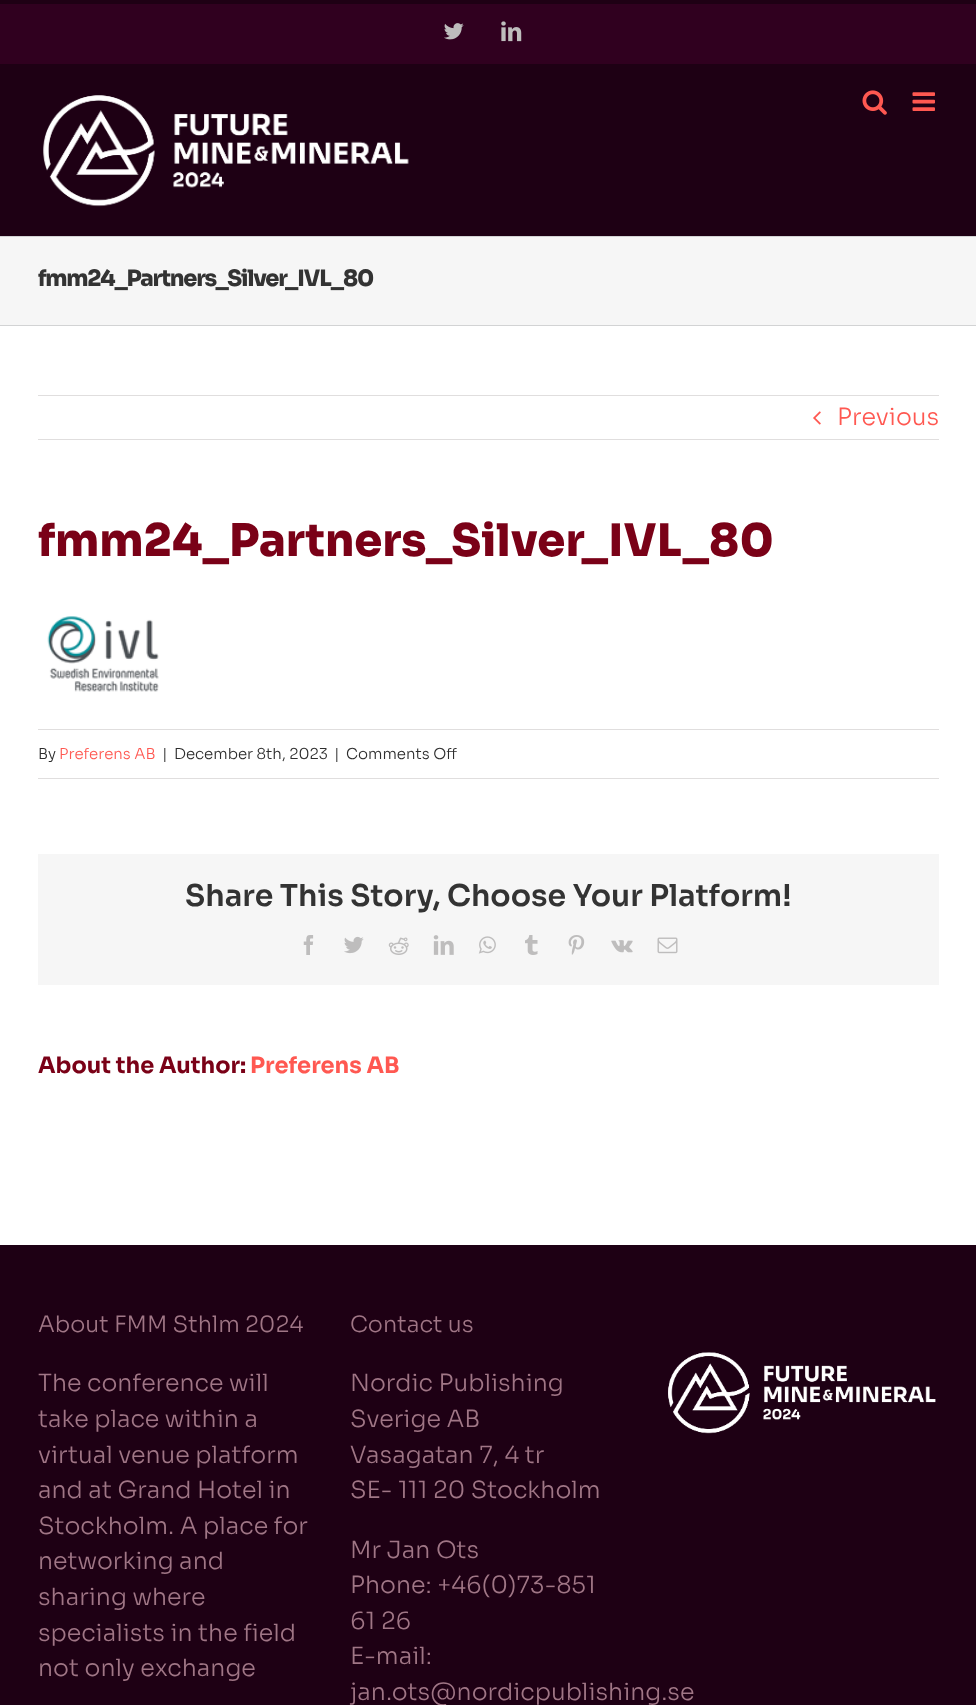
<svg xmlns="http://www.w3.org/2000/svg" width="976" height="1705">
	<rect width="100%" height="100%" fill="#FFFFFF" />
	<rect x="0" y="4" width="976" height="60" fill="#30001F" />
	<rect x="0" y="0" width="976" height="4" fill="#1E0014" />
	<image x="444" y="23" width="20" height="17" href="assets/img1.png" />
	<image x="501" y="21" width="21" height="21" href="assets/img2.png" />
	<rect x="0" y="64" width="976" height="172" fill="#1E0014" />
	<image x="43" y="95" width="366" height="112" href="assets/img3.png" />
	<image x="862" y="90" width="25" height="25" href="assets/img4.png" />
	<image x="912" y="92" width="23" height="19" href="assets/img5.png" />
	<rect x="0" y="237" width="976" height="88" fill="#F6F6F6" />
	<rect x="0" y="236" width="976" height="1" fill="#D2D3D4" />
	<rect x="0" y="325" width="976" height="1" fill="#D2D3D4" />
	<text x="38" y="286" font-family="Sora" font-size="22.5" font-weight="800" letter-spacing="-1.25" fill="#333333">fmm24_Partners_Silver_IVL_80</text>
	<rect x="38" y="395" width="901" height="1" fill="#E0DEDE" />
	<rect x="38" y="439" width="901" height="1" fill="#E0DEDE" />
	<image x="813" y="411" width="8" height="14" href="assets/img6.png" />
	<text x="837" y="425" font-family="Sora" font-size="23.75" font-weight="300" fill="#FF5851">Previous</text>
	<text x="38" y="556" font-family="Sora" font-size="44.75" font-weight="800" fill="#7A0117">fmm24_Partners_Silver_IVL_80</text>
	<image x="47" y="616" width="112" height="76" href="assets/img7.png" />
	<rect x="38" y="729" width="901" height="1" fill="#E0DEDE" />
	<rect x="38" y="778" width="901" height="1" fill="#E0DEDE" />
	<text x="38" y="759" font-family="Sora" font-size="15" font-weight="300" fill="#2D2D2D">By</text>
	<text x="59" y="759" font-family="Sora" font-size="15" font-weight="300" fill="#FF5851">Preferens AB</text>
	<g font-family="Sora" font-size="15" font-weight="300" fill="#2D2D2D">
		<text x="162" y="759">|</text>
		<text x="174" y="759">December 8th, 2023</text>
		<text x="334" y="759">|</text>
		<text x="346" y="759">Comments Off</text>
	</g>
	<rect x="38" y="854" width="901" height="131" fill="#F6F6F6" />
	<text x="185" y="906" font-family="Sora" font-size="30" font-weight="600" fill="#333333">Share This Story, Choose Your Platform!</text>
	<image x="303" y="935" width="11" height="20" href="assets/img8.png" />
	<image x="344" y="936" width="20" height="18" href="assets/img9.png" />
	<image x="388" y="937" width="21" height="18" href="assets/img10.png" />
	<image x="433" y="935" width="21" height="20" href="assets/img11.png" />
	<image x="478" y="936" width="18" height="18" href="assets/img12.png" />
	<image x="525" y="935" width="13" height="20" href="assets/img13.png" />
	<image x="568" y="935" width="17" height="20" href="assets/img14.png" />
	<image x="611" y="940" width="22" height="13" href="assets/img15.png" />
	<image x="657" y="937" width="21" height="17" href="assets/img16.png" />
	<text x="38" y="1073" font-family="Sora" font-size="22.5" font-weight="700" fill="#7A0117">About the Author:</text>
	<text x="250" y="1073" font-family="Sora" font-size="22.5" font-weight="700" fill="#FF5851">Preferens AB</text>
	<rect x="0" y="1245" width="976" height="460" fill="#1E0014" />
	<text x="38" y="1332" font-family="Sora" font-size="22.5" font-weight="300" fill="#A07686">About FMM Sthlm 2024</text>
	<g font-family="Sora" font-size="23.75" font-weight="300" fill="#A07686">
		<text x="38" y="1391">The conference will</text>
		<text x="38" y="1427">take place within a</text>
		<text x="38" y="1463">virtual venue platform</text>
		<text x="38" y="1498">and at Grand Hotel in</text>
		<text x="38" y="1534">Stockholm. A place for</text>
		<text x="38" y="1569">networking and</text>
		<text x="38" y="1605">sharing where</text>
		<text x="38" y="1641">specialists in the field</text>
		<text x="38" y="1676">not only exchange</text>
	</g>
	<text x="350" y="1332" font-family="Sora" font-size="22.5" font-weight="300" fill="#A07686">Contact us</text>
	<g font-family="Sora" font-size="23.75" font-weight="300" fill="#A07686">
		<text x="350" y="1391">Nordic Publishing</text>
		<text x="350" y="1427">Sverige AB</text>
		<text x="350" y="1463">Vasagatan 7, 4 tr</text>
		<text x="350" y="1498">SE- 111 20 Stockholm</text>
		<text x="350" y="1558">Mr Jan Ots</text>
		<text x="350" y="1593">Phone: +46(0)73-851</text>
		<text x="350" y="1629">61 26</text>
		<text x="350" y="1664">E-mail:</text>
		<text x="350" y="1700">jan.ots@nordicpublishing.se</text>
	</g>
	<image x="668" y="1352" width="268" height="82" href="assets/img17.png" />
</svg>
